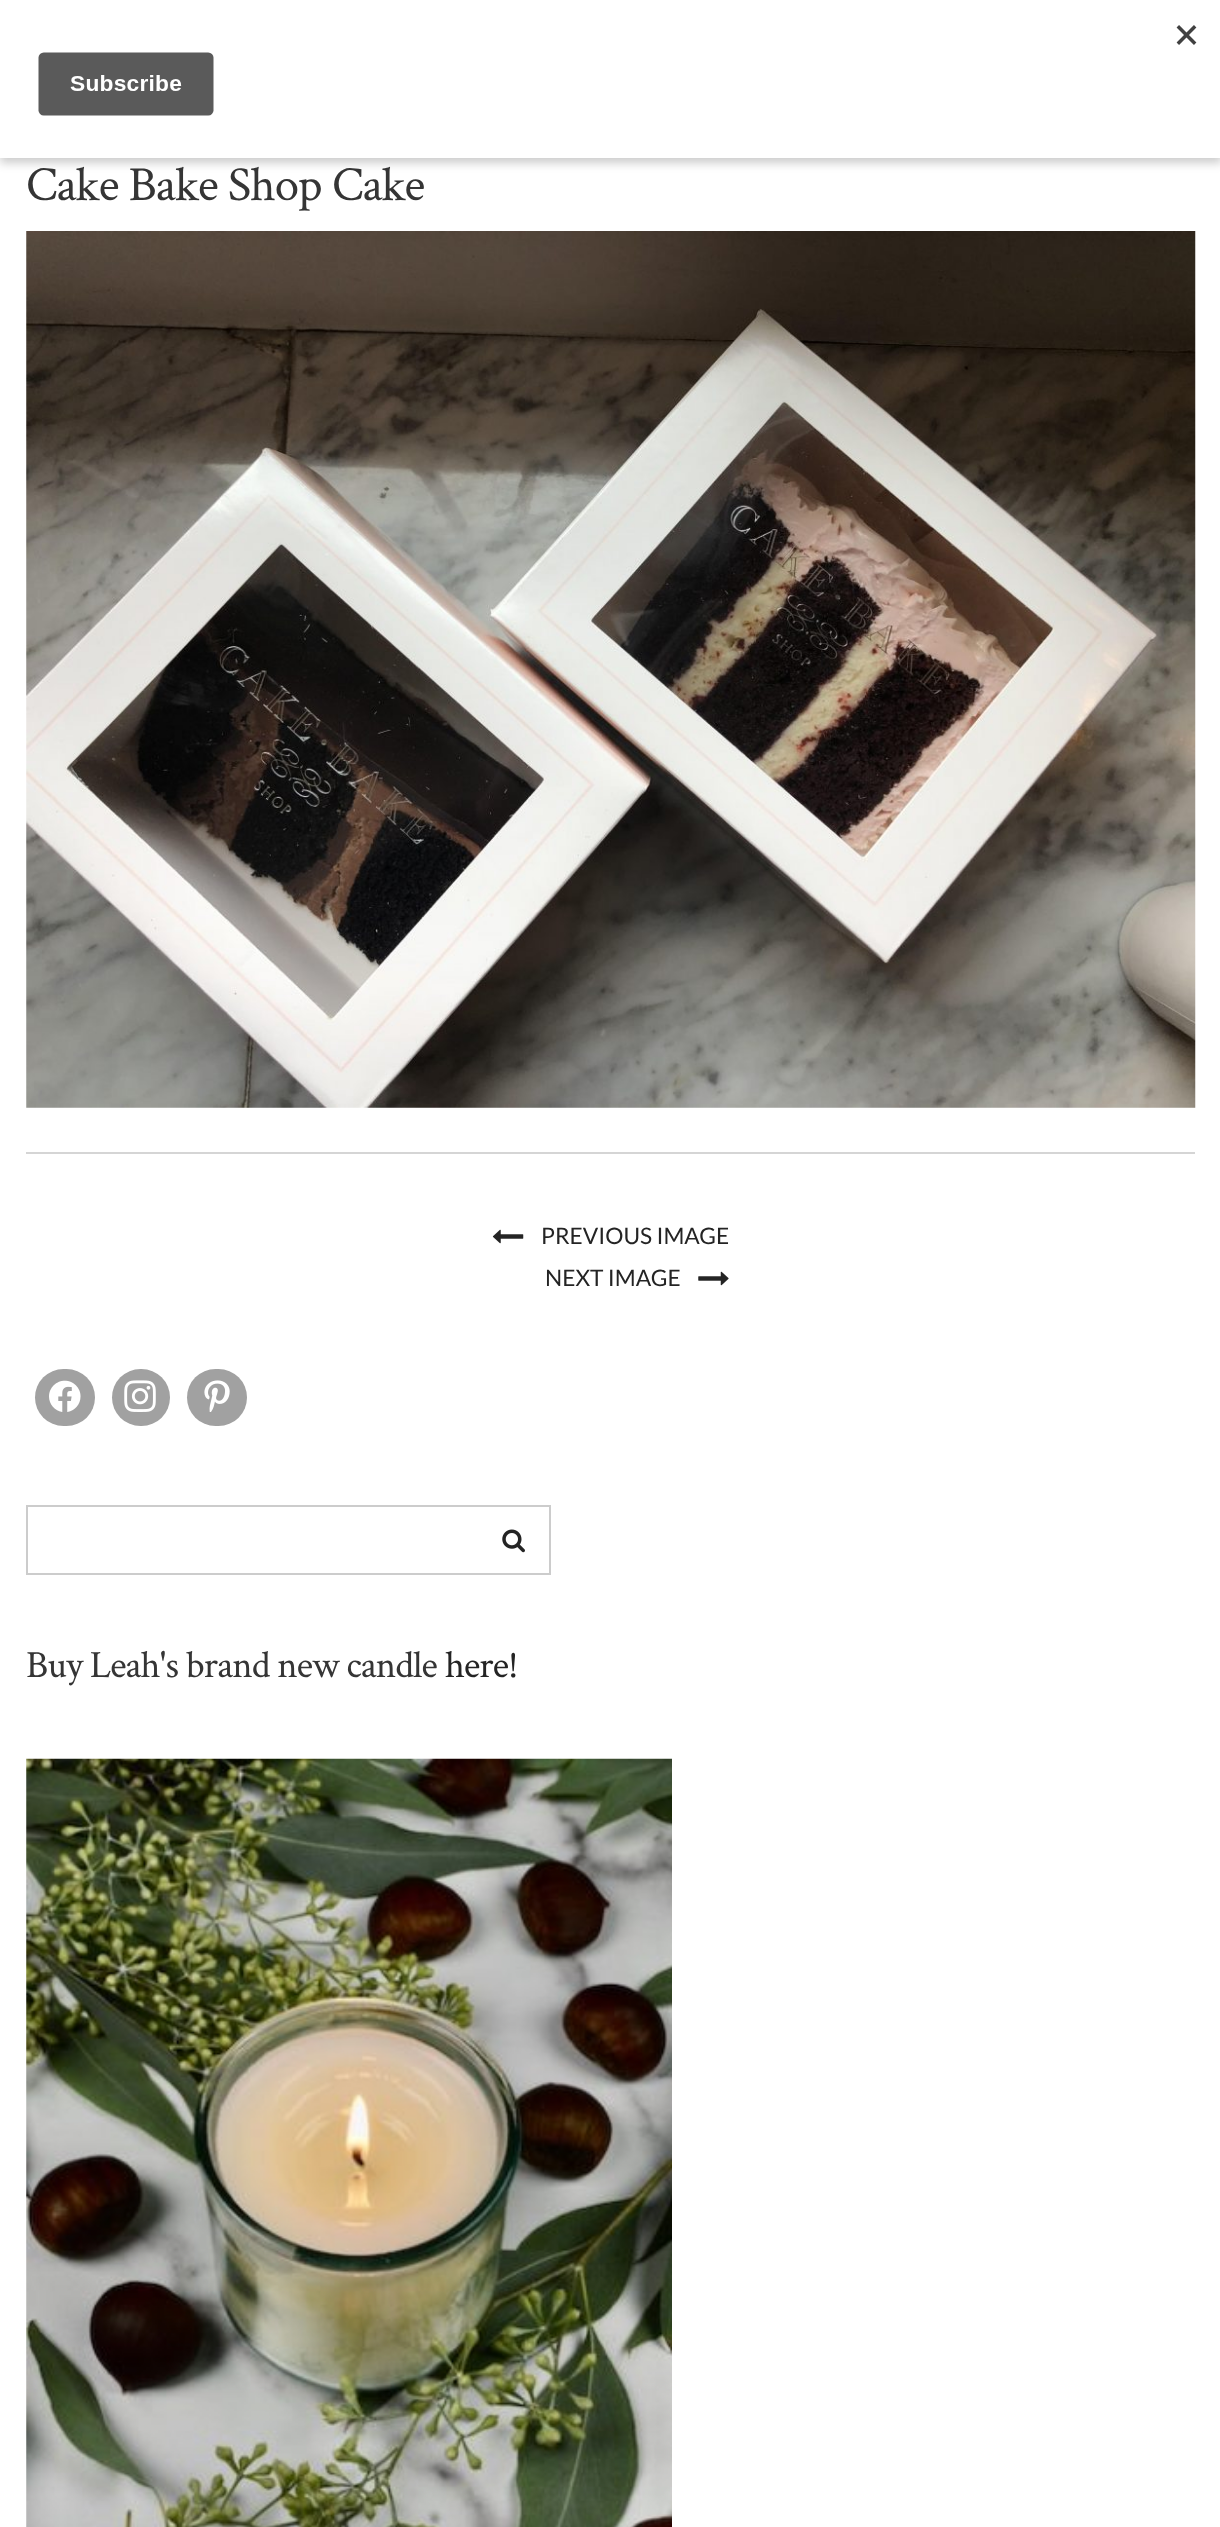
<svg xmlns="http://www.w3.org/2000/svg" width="1220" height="2527">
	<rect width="100%" height="100%" fill="#FFFFFF" />
	<rect x="0" y="5" width="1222" height="158" fill="#000000" fill-opacity="0.2" filter="blur(5px)" />
	<rect x="0" y="0" width="1220" height="158" fill="#FFFFFF" />
	<image x="38" y="25" width="1159" height="91" href="assets/img1.png" />
	<text x="26" y="200" font-family="Crimson Text" font-size="49" letter-spacing="-0.9" fill="#353535">Cake Bake Shop Cake</text>
	<image x="26" y="231" width="1170" height="877" href="assets/img2.png" />
	<rect x="26" y="1152" width="1169" height="2" fill="#D5D5D5" />
	<image x="492" y="1229" width="32" height="15" href="assets/img3.png" />
	<g font-family="Lato" font-size="22.75" fill="#242424">
		<text x="541" y="1244">PREVIOUS IMAGE</text>
		<text x="545" y="1286">NEXT IMAGE</text>
	</g>
	<image x="698" y="1271" width="31" height="15" href="assets/img4.png" />
	<rect x="35" y="1369" width="60" height="57" rx="28.5" fill="#A1A1A1" />
	<image x="49" y="1380" width="32" height="32" href="assets/img5.png" />
	<rect x="112" y="1369" width="58" height="57" rx="28.5" fill="#A1A1A1" />
	<image x="124" y="1380" width="32" height="32" href="assets/img6.png" />
	<rect x="187" y="1369" width="60" height="57" rx="28.5" fill="#A1A1A1" />
	<image x="204" y="1380" width="26" height="32" href="assets/img7.png" />
	<image x="502" y="1529" width="23" height="24" href="assets/img8.png" />
	<rect x="27" y="1506" width="523" height="68" fill="none" stroke="#CCCCCC" stroke-width="2" />
	<text x="26" y="1677" font-family="Crimson Text" font-size="38.5" letter-spacing="-0.9" fill="#353535">Buy Leah's brand new candle</text>
	<text x="445" y="1677" font-family="Crimson Text" font-size="38.5" letter-spacing="-0.9" fill="#242424">here!</text>
	<image x="26" y="1758" width="646" height="769" href="assets/img9.png" />
</svg>
